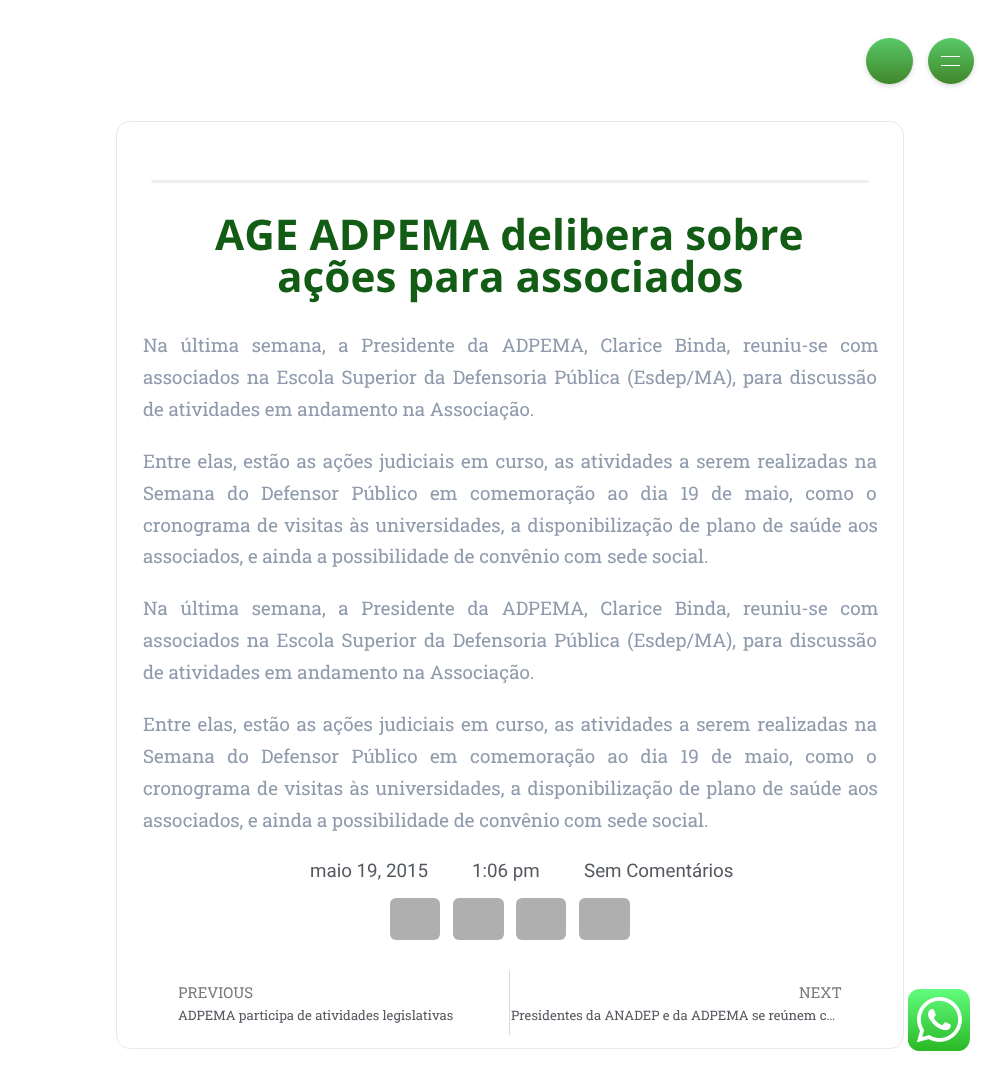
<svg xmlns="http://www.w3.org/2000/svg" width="988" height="1069">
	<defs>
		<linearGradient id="g1" gradientUnits="userSpaceOnUse" x1="889" y1="130" x2="889" y2="38"><stop offset="0" stop-color="#59C968" /><stop offset="0.51" stop-color="#41872B" /><stop offset="1" stop-color="#59C968" /></linearGradient>
		<linearGradient id="g2" gradientUnits="userSpaceOnUse" x1="951" y1="130" x2="951" y2="38"><stop offset="0" stop-color="#59C968" /><stop offset="0.51" stop-color="#41872B" /><stop offset="1" stop-color="#59C968" /></linearGradient>
		<clipPath id="clip1"><rect x="179" y="980" width="275" height="25" /></clipPath>
	</defs>
	<rect width="100%" height="100%" fill="#FFFFFF" />
	<rect x="866" y="40" width="47" height="46" rx="23" fill="#000000" fill-opacity="0.15" filter="blur(2.5px)" />
	<rect x="866" y="38" width="47" height="46" rx="23" fill="url(#g1)" />
	<rect x="928" y="40" width="46" height="46" rx="23" fill="#000000" fill-opacity="0.15" filter="blur(2.5px)" />
	<circle cx="951" cy="61" r="23" fill="url(#g2)" />
	<rect x="941" y="56" width="19" height="1" fill="#FFFFFF" />
	<rect x="941" y="65" width="19" height="1" fill="#FFFFFF" />
	<rect x="116.5" y="121.5" width="787" height="927" rx="13.5" fill="none" stroke="#E9E9E9" />
	<rect x="151" y="180" width="718" height="3" rx="1.5" fill="#EEEEEE" />
	<g font-family="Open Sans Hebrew" font-size="42.3" font-weight="700" fill="#135C15">
		<text x="215" y="250">AGE ADPEMA delibera sobre</text>
		<text x="277" y="292">ações para associados</text>
	</g>
	<g font-family="Roboto Slab" font-size="18.75" fill="#8F9BAD">
		<text x="143" y="352" word-spacing="8">Na última semana, a Presidente da ADPEMA, Clarice Binda, reuniu-se com</text>
		<text x="143" y="384" word-spacing="2.5">associados na Escola Superior da Defensoria Pública (Esdep/MA), para discussão</text>
		<text x="143" y="416">de atividades em andamento na Associação.</text>
		<text x="143" y="468" word-spacing="2">Entre elas, estão as ações judiciais em curso, as atividades a serem realizadas na</text>
		<text x="143" y="500" word-spacing="7.75">Semana do Defensor Público em comemoração ao dia 19 de maio, como o</text>
		<text x="143" y="532" word-spacing="1.75">cronograma de visitas às universidades, a disponibilização de plano de saúde aos</text>
		<text x="143" y="563">associados, e ainda a possibilidade de convênio com sede social.</text>
		<text x="143" y="615" word-spacing="8">Na última semana, a Presidente da ADPEMA, Clarice Binda, reuniu-se com</text>
		<text x="143" y="647" word-spacing="2.5">associados na Escola Superior da Defensoria Pública (Esdep/MA), para discussão</text>
		<text x="143" y="679">de atividades em andamento na Associação.</text>
		<text x="143" y="731" word-spacing="2">Entre elas, estão as ações judiciais em curso, as atividades a serem realizadas na</text>
		<text x="143" y="763" word-spacing="7.75">Semana do Defensor Público em comemoração ao dia 19 de maio, como o</text>
		<text x="143" y="795" word-spacing="1.75">cronograma de visitas às universidades, a disponibilização de plano de saúde aos</text>
		<text x="143" y="827">associados, e ainda a possibilidade de convênio com sede social.</text>
	</g>
	<g font-family="Roboto" font-size="18.75" fill="#54595F">
		<text x="310" y="877">maio 19, 2015</text>
		<text x="472" y="877">1:06 pm</text>
		<text x="584" y="877">Sem Comentários</text>
	</g>
	<rect x="390" y="898" width="50" height="42" rx="6" fill="#AFAFAF" />
	<rect x="453" y="898" width="51" height="42" rx="6" fill="#AFAFAF" />
	<rect x="516" y="898" width="50" height="42" rx="6" fill="#AFAFAF" />
	<rect x="579" y="898" width="51" height="42" rx="6" fill="#AFAFAF" />
	<g clip-path="url(#clip1)">
		<text x="178" y="998" font-family="Roboto Slab" font-size="15" fill="#7A7A7A">PREVIOUS</text>
	</g>
	<text x="178" y="1020" font-family="Roboto Slab" font-size="13.1" fill="#54595F">ADPEMA participa de atividades legislativas</text>
	<rect x="509" y="971" width="1" height="64" fill="#D5D8DC" />
	<text x="799" y="998" font-family="Roboto Slab" font-size="15" fill="#7A7A7A">NEXT</text>
	<text x="511" y="1020" font-family="Roboto Slab" font-size="13.1" fill="#54595F">Presidentes da ANADEP e da ADPEMA se reúnem c…</text>
	<image x="908" y="989" width="62" height="62" href="assets/img1.png" />
</svg>
